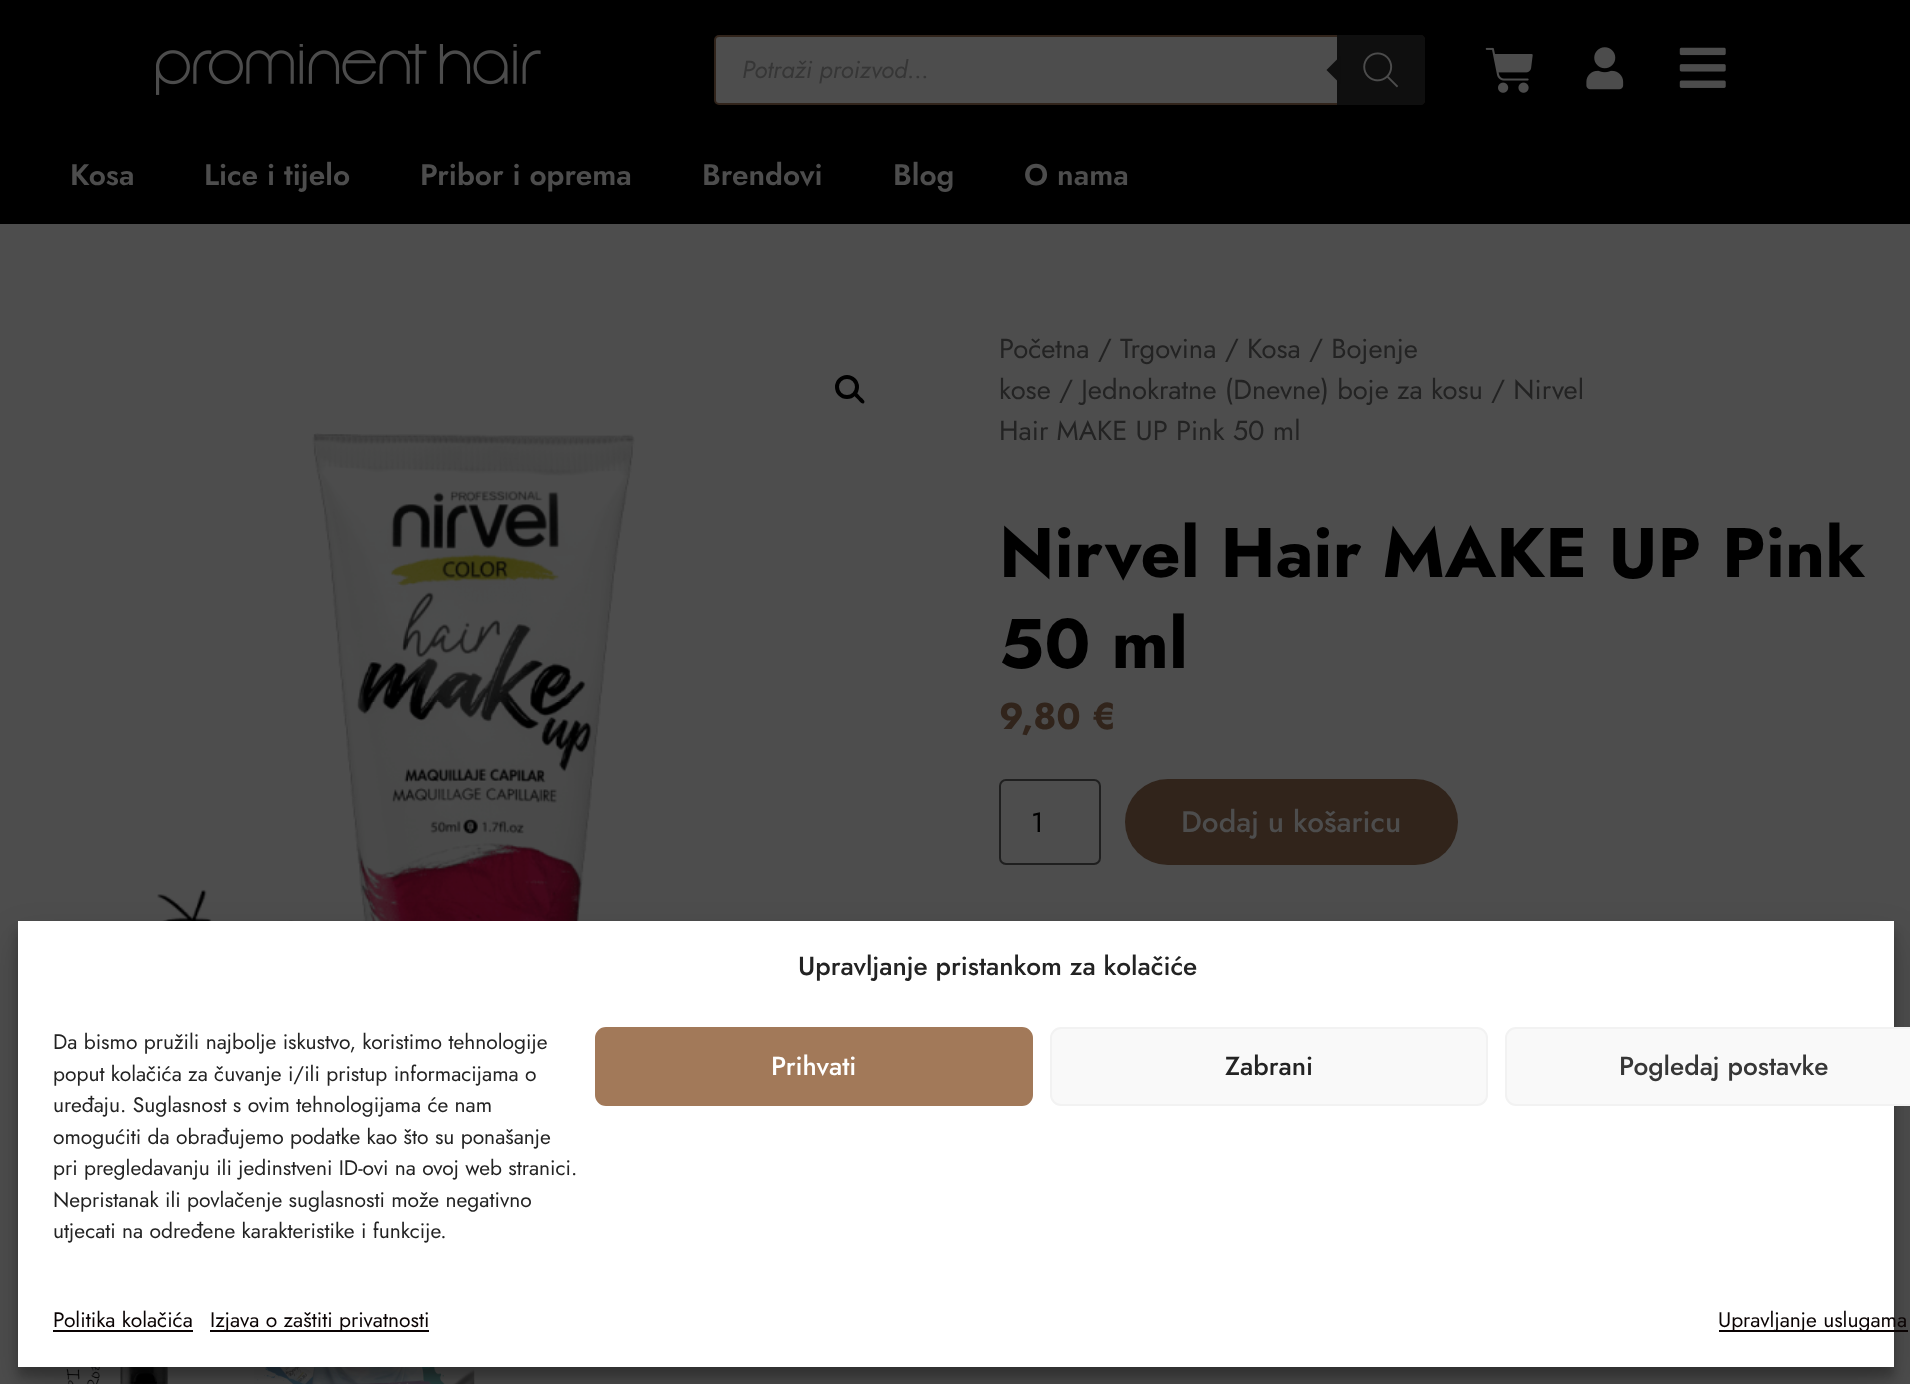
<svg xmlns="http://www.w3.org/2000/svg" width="1910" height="1384">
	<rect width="100%" height="100%" fill="#4D4D4D" />
	<rect x="0" y="0" width="1910" height="224" fill="#000000" />
	<image x="156" y="44" width="385" height="51" href="assets/img1.png" />
	<rect x="715" y="36" width="709" height="68" rx="4" fill="#4D4D4D" stroke="#31241B" stroke-width="2" />
	<text x="742" y="78" font-family="Jost" font-size="24.5" font-style="italic" fill="#363636">Potraži proizvod...</text>
	<path d="M1337 35H1421C1423 35 1425 37 1425 39V101C1425 103 1423 105 1421 105H1337Z" fill="#0F0F0F" />
	<path d="M1340.5 56V84L1326.5 70Z" fill="#0F0F0F" />
	<image x="1363" y="52" width="35" height="36" href="assets/img2.png" />
	<image x="1485" y="47" width="48" height="46" href="assets/img3.png" />
	<image x="1586" y="47" width="38" height="43" href="assets/img4.png" />
	<image x="1679" y="47" width="47" height="41" href="assets/img5.png" />
	<g font-family="Jost" font-size="29.75" font-weight="600" fill="#4D4D4D">
		<text x="70" y="185">Kosa</text>
		<text x="204" y="185">Lice i tijelo</text>
		<text x="420" y="185">Pribor i oprema</text>
		<text x="702" y="185">Brendovi</text>
		<text x="893" y="185">Blog</text>
		<text x="1024" y="185">O nama</text>
	</g>
	<circle cx="847" cy="387" r="10" fill="none" stroke="#000000" stroke-width="4" />
	<path d="M854.5 393C856.5 391 859.5 396 860.5 397C861.5 398 866 401 864 403C862 405 859 400.5 858 399.5C857 398.5 852.5 395 854.5 393Z" fill="#000000" />
	<image x="157" y="433" width="478" height="488" href="assets/img6.png" />
	<image x="66" y="1367" width="103" height="17" href="assets/img7.png" />
	<image x="253" y="1367" width="222" height="17" href="assets/img8.png" />
	<g font-family="Jost" font-size="27.4" fill="#232323">
		<text x="999" y="358">Početna / Trgovina / Kosa / Bojenje</text>
		<text x="999" y="399">kose / Jednokratne (Dnevne) boje za kosu</text>
		<text x="1491" y="399">/ Nirvel</text>
		<text x="999" y="440">Hair MAKE UP Pink 50 ml</text>
	</g>
	<g font-family="Jost" font-size="70" font-weight="700" fill="#000000">
		<text x="999" y="577">Nirvel Hair MAKE UP Pink</text>
		<text x="999" y="668">50 ml</text>
	</g>
	<text x="999" y="729" font-family="Jost" font-size="37" font-weight="700" fill="#31241B">9,80 €</text>
	<rect x="1000" y="780" width="100" height="84" rx="6" fill="none" stroke="#1F1F1F" stroke-width="2" />
	<text x="1031" y="832" font-family="Jost" font-size="28" fill="#000000">1</text>
	<rect x="1125" y="779" width="333" height="86" rx="43" fill="#31241B" />
	<text x="1181" y="832" font-family="Jost" font-size="29.75" font-weight="500" fill="#4D4D4D">Dodaj u košaricu</text>
	<rect x="18" y="931" width="1876" height="446" fill="#000000" fill-opacity="0.23" filter="blur(5px)" />
	<rect x="18" y="938" width="1876" height="446" fill="#000000" fill-opacity="0.19" filter="blur(17.5px)" />
	<rect x="18" y="921" width="1876" height="446" fill="#FFFFFF" />
	<text x="798" y="975" font-family="Jost" font-size="26.25" font-weight="500" fill="#232323">Upravljanje pristankom za kolačiće</text>
	<g font-family="Jost" font-size="21" fill="#232323">
		<text x="53" y="1049">Da bismo pružili najbolje iskustvo, koristimo tehnologije</text>
		<text x="53" y="1081">poput kolačića za čuvanje i/ili pristup informacijama o</text>
		<text x="53" y="1112">uređaju. Suglasnost s ovim tehnologijama će nam</text>
		<text x="53" y="1144">omogućiti da obrađujemo podatke kao što su ponašanje</text>
		<text x="53" y="1175">pri pregledavanju ili jedinstveni ID-ovi na ovoj web stranici.</text>
		<text x="53" y="1207">Nepristanak ili povlačenje suglasnosti može negativno</text>
		<text x="53" y="1238">utjecati na određene karakteristike i funkcije.</text>
	</g>
	<rect x="596" y="1028" width="436" height="77" rx="10" fill="#A27959" stroke="#A27959" stroke-width="2" />
	<text x="771" y="1075" font-family="Jost" font-size="26.25" font-weight="500" fill="#FFFFFF">Prihvati</text>
	<rect x="1051" y="1028" width="436" height="77" rx="10" fill="#F9F9F9" stroke="#F2F2F2" stroke-width="2" />
	<text x="1225" y="1075" font-family="Jost" font-size="26.25" font-weight="500" fill="#232323">Zabrani</text>
	<rect x="1506" y="1028" width="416" height="77" rx="10" fill="#F9F9F9" stroke="#F2F2F2" stroke-width="2" />
	<text x="1619" y="1075" font-family="Jost" font-size="26.25" font-weight="500" fill="#363636">Pogledaj postavke</text>
	<text x="53" y="1327" font-family="Jost" font-size="21" fill="#0A0303">Politika kolačića</text>
	<rect x="53" y="1330" width="140" height="2" fill="#0A0303" />
	<rect x="210" y="1330" width="219" height="2" fill="#0A0303" />
	<text x="210" y="1327" font-family="Jost" font-size="21" fill="#0A0303">Izjava o zaštiti privatnosti</text>
	<rect x="1719" y="1330" width="189" height="2" fill="#0A0303" />
	<text x="1718" y="1327" font-family="Jost" font-size="21" fill="#0A0303">Upravljanje uslugama</text>
</svg>
